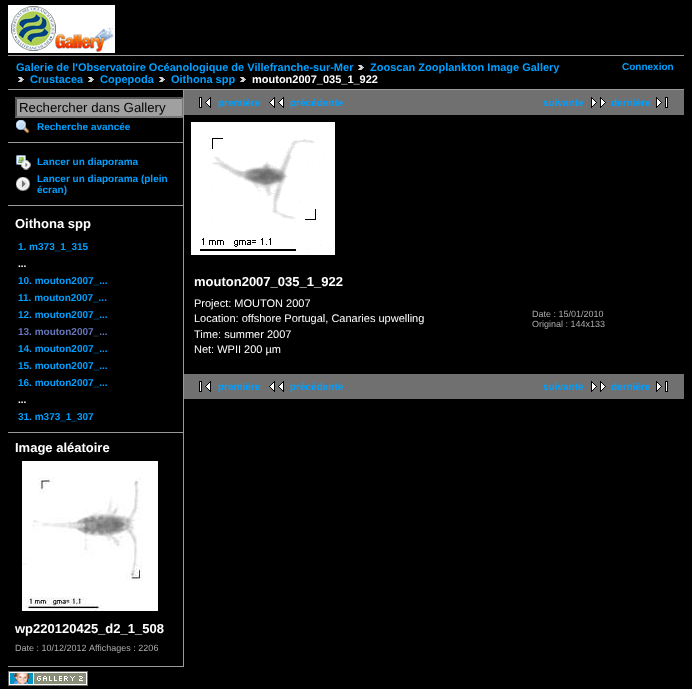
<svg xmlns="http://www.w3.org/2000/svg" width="692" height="689">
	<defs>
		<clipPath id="clip1"><rect x="8" y="90" width="175" height="577" /></clipPath>
	</defs>
	<rect width="100%" height="100%" fill="#000000" />
	<image x="8" y="5" width="107" height="48" href="assets/img1.png" />
	<rect x="8" y="55" width="676" height="1" fill="#999999" />
	<rect x="8" y="89" width="676" height="1" fill="#999999" />
	<text x="16" y="71" font-family="Liberation Sans" font-size="11" font-weight="700" fill="#00A0FF">Galerie de l'Observatoire Océanologique de Villefranche-sur-Mer</text>
	<image x="358" y="65" width="6" height="5" href="assets/img2.png" />
	<text x="370" y="71" font-family="Liberation Sans" font-size="11" font-weight="700" fill="#00A0FF">Zooscan Zooplankton Image Gallery</text>
	<image x="18" y="77" width="6" height="5" href="assets/img2.png" />
	<text x="30" y="83" font-family="Liberation Sans" font-size="11" font-weight="700" fill="#00A0FF">Crustacea</text>
	<image x="88" y="77" width="6" height="5" href="assets/img2.png" />
	<text x="100" y="83" font-family="Liberation Sans" font-size="11" font-weight="700" fill="#00A0FF">Copepoda</text>
	<image x="159" y="77" width="6" height="5" href="assets/img2.png" />
	<text x="171" y="83" font-family="Liberation Sans" font-size="11" font-weight="700" fill="#00A0FF">Oithona spp</text>
	<image x="240" y="77" width="6" height="5" href="assets/img2.png" />
	<text x="252" y="83" font-family="Liberation Sans" font-size="11" font-weight="700" fill="#FFFFFF">mouton2007_035_1_922</text>
	<text x="622" y="70" font-family="Liberation Sans" font-size="10" font-weight="700" fill="#00A0FF">Connexion</text>
	<rect x="183" y="90" width="1" height="577" fill="#999999" />
	<rect x="8" y="142" width="175" height="1" fill="#999999" />
	<rect x="15" y="97" width="168" height="21" fill="#A0A0A0" />
	<path d="M15 97H184L182 99H17Z" fill="#4F4F4F" />
	<g clip-path="url(#clip1)">
		<path d="M184 97V118L182 116V99Z" fill="#767676" />
	</g>
	<path d="M184 118H15L17 116H182Z" fill="#767676" />
	<path d="M15 118V97L17 99V116Z" fill="#4F4F4F" />
	<text x="19" y="112" font-family="Liberation Sans" font-size="13.25" fill="#000000">Rechercher dans Gallery</text>
	<image x="16" y="120" width="13" height="14" href="assets/img3.png" />
	<text x="37" y="130" font-family="Liberation Sans" font-size="10" font-weight="700" fill="#00A0FF">Recherche avancée</text>
	<rect x="8" y="205" width="175" height="1" fill="#999999" />
	<image x="16" y="155" width="15" height="15" href="assets/img4.png" />
	<text x="37" y="165" font-family="Liberation Sans" font-size="10" font-weight="700" fill="#00A0FF">Lancer un diaporama</text>
	<image x="16" y="177" width="14" height="14" href="assets/img5.png" />
	<g font-family="Liberation Sans" font-size="10" font-weight="700" fill="#00A0FF">
		<text x="37" y="182">Lancer un diaporama (plein</text>
		<text x="37" y="193">écran)</text>
	</g>
	<rect x="8" y="432" width="175" height="1" fill="#999999" />
	<text x="15" y="228" font-family="Liberation Sans" font-size="13" font-weight="700" fill="#FFFFFF">Oithona spp</text>
	<text x="18" y="250" font-family="Liberation Sans" font-size="10" font-weight="700" fill="#00A0FF">1. m373_1_315</text>
	<text x="18" y="267" font-family="Liberation Sans" font-size="10" font-weight="700" fill="#FFFFFF">...</text>
	<g font-family="Liberation Sans" font-size="10" font-weight="700" fill="#00A0FF">
		<text x="18" y="284">10. mouton2007_...</text>
		<text x="18" y="301">11. mouton2007_...</text>
		<text x="18" y="318">12. mouton2007_...</text>
	</g>
	<text x="18" y="335" font-family="Liberation Sans" font-size="10" font-weight="700" fill="#6677BB">13. mouton2007_...</text>
	<g font-family="Liberation Sans" font-size="10" font-weight="700" fill="#00A0FF">
		<text x="18" y="352">14. mouton2007_...</text>
		<text x="18" y="369">15. mouton2007_...</text>
		<text x="18" y="386">16. mouton2007_...</text>
	</g>
	<text x="18" y="403" font-family="Liberation Sans" font-size="10" font-weight="700" fill="#FFFFFF">...</text>
	<text x="18" y="420" font-family="Liberation Sans" font-size="10" font-weight="700" fill="#00A0FF">31. m373_1_307</text>
	<rect x="8" y="666" width="175" height="1" fill="#999999" />
	<text x="15" y="452" font-family="Liberation Sans" font-size="13" font-weight="700" fill="#FFFFFF">Image aléatoire</text>
	<image x="22" y="461" width="136" height="150" href="assets/img6.png" />
	<text x="15" y="633" font-family="Liberation Sans" font-size="13" font-weight="700" fill="#FFFFFF">wp220120425_d2_1_508</text>
	<g font-family="Liberation Sans" font-size="9" fill="#AAAAAA">
		<text x="15" y="651">Date : 10/12/2012</text>
		<text x="89" y="651">Affichages : 2206</text>
	</g>
	<rect x="184" y="90" width="500" height="25" fill="#707070" />
	<image x="199" y="97" width="12" height="11" href="assets/img7.png" />
	<text x="218" y="106" font-family="Liberation Sans" font-size="10" font-weight="700" fill="#00A0FF">première</text>
	<image x="269" y="97" width="15" height="11" href="assets/img8.png" />
	<g font-family="Liberation Sans" font-size="10" font-weight="700" fill="#00A0FF">
		<text x="290" y="106">précédente</text>
		<text x="543" y="106">suivante</text>
	</g>
	<image x="591" y="97" width="15" height="11" href="assets/img9.png" />
	<text x="611" y="106" font-family="Liberation Sans" font-size="10" font-weight="700" fill="#00A0FF">dernière</text>
	<image x="656" y="97" width="12" height="11" href="assets/img10.png" />
	<image x="191" y="122" width="144" height="133" href="assets/img11.png" />
	<text x="194" y="286" font-family="Liberation Sans" font-size="13" font-weight="700" fill="#FFFFFF">mouton2007_035_1_922</text>
	<g font-family="Liberation Sans" font-size="11" fill="#FFFFFF">
		<text x="194" y="307">Project: MOUTON 2007</text>
		<text x="194" y="322">Location: offshore Portugal, Canaries upwelling</text>
		<text x="194" y="338">Time: summer 2007</text>
		<text x="194" y="353">Net: WPII 200 µm</text>
	</g>
	<g font-family="Liberation Sans" font-size="9" fill="#AAAAAA">
		<text x="532" y="317">Date : 15/01/2010</text>
		<text x="532" y="327">Original : 144x133</text>
	</g>
	<rect x="184" y="374" width="500" height="25" fill="#707070" />
	<image x="199" y="381" width="12" height="11" href="assets/img7.png" />
	<text x="218" y="390" font-family="Liberation Sans" font-size="10" font-weight="700" fill="#00A0FF">première</text>
	<image x="269" y="381" width="15" height="11" href="assets/img8.png" />
	<g font-family="Liberation Sans" font-size="10" font-weight="700" fill="#00A0FF">
		<text x="290" y="390">précédente</text>
		<text x="543" y="390">suivante</text>
	</g>
	<image x="591" y="381" width="15" height="11" href="assets/img9.png" />
	<text x="611" y="390" font-family="Liberation Sans" font-size="10" font-weight="700" fill="#00A0FF">dernière</text>
	<image x="656" y="381" width="12" height="11" href="assets/img10.png" />
	<image x="8" y="671" width="80" height="15" href="assets/img12.png" />
</svg>
